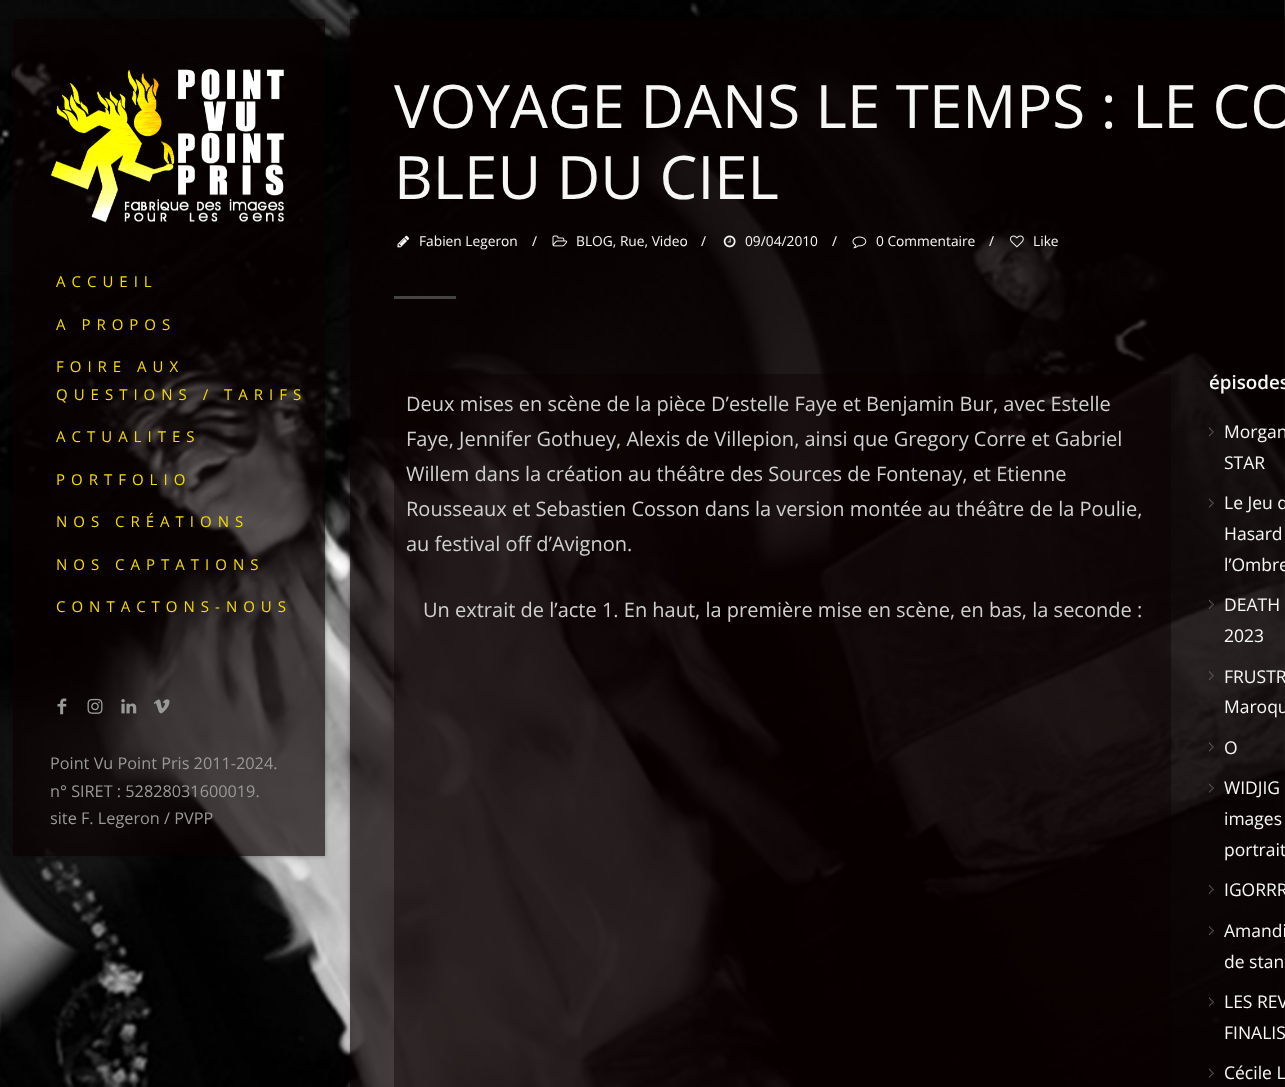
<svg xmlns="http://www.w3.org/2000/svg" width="1285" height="1087">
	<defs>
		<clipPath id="clip1"><path d="M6 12H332V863H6ZM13 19H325V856H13Z" clip-rule="evenodd" /></clipPath>
		<clipPath id="clip2"><path d="M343 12H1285V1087H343ZM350 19H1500V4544H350Z" clip-rule="evenodd" /></clipPath>
	</defs>
	<rect width="100%" height="100%" fill="#FFFFFF" />
	<image x="0" y="0" width="1285" height="1087" href="assets/img1.png" />
	<g clip-path="url(#clip1)">
		<rect x="13" y="19" width="312" height="837" fill="#000000" fill-opacity="0.3" filter="blur(2px)" />
	</g>
	<rect x="13" y="19" width="312" height="837" fill="#0A0000" fill-opacity="0.65" />
	<image x="51" y="68" width="233" height="155" href="assets/img2.png" />
	<g font-family="Open Sans" font-size="15" letter-spacing="6" fill="#F4DC00">
		<text x="56" y="287">ACCUEIL</text>
		<text x="56" y="330">A PROPOS</text>
		<text x="56" y="372">FOIRE AUX</text>
		<text x="56" y="400">QUESTIONS / TARIFS</text>
		<text x="56" y="442">ACTUALITES</text>
		<text x="56" y="485">PORTFOLIO</text>
		<text x="56" y="527">NOS CRÉATIONS</text>
		<text x="56" y="570">NOS CAPTATIONS</text>
		<text x="56" y="612">CONTACTONS-NOUS</text>
	</g>
	<image x="57" y="698" width="10" height="17" href="assets/img3.png" />
	<image x="87" y="698" width="16" height="16" href="assets/img4.png" />
	<image x="121" y="699" width="16" height="15" href="assets/img5.png" />
	<image x="153" y="699" width="17" height="15" href="assets/img6.png" />
	<g font-family="Open Sans" font-size="16.25" fill="#999999">
		<text x="50" y="769">Point Vu Point Pris 2011-2024.</text>
		<text x="50" y="797">n° SIRET : 52828031600019.</text>
		<text x="50" y="824">site F. Legeron / PVPP</text>
	</g>
	<g clip-path="url(#clip2)">
		<rect x="350" y="19" width="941" height="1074" fill="#000000" fill-opacity="0.3" filter="blur(2px)" />
	</g>
	<rect x="350" y="19" width="935" height="1068" fill="#0A0000" fill-opacity="0.7" />
	<g font-family="Open Sans" font-size="60" fill="#F7F7F7">
		<text x="394" y="128">VOYAGE DANS LE TEMPS : LE CO</text>
		<text x="394" y="199">BLEU DU CIEL</text>
	</g>
	<image x="397" y="235" width="13" height="13" href="assets/img7.png" />
	<g font-family="Open Sans" font-size="13.75" fill="#F7F7F7">
		<text x="419" y="246">Fabien Legeron</text>
		<text x="532" y="246">/</text>
	</g>
	<image x="552" y="235" width="16" height="12" href="assets/img8.png" />
	<g font-family="Open Sans" font-size="13.75" fill="#F7F7F7">
		<text x="576" y="246">BLOG, Rue, Video</text>
		<text x="701" y="246">/</text>
	</g>
	<image x="723" y="235" width="13" height="13" href="assets/img9.png" />
	<g font-family="Open Sans" font-size="13.75" fill="#F7F7F7">
		<text x="745" y="246">09/04/2010</text>
		<text x="832" y="246">/</text>
	</g>
	<image x="852" y="236" width="15" height="13" href="assets/img10.png" />
	<g font-family="Open Sans" font-size="13.75" fill="#F7F7F7">
		<text x="876" y="246">0 Commentaire</text>
		<text x="989" y="246">/</text>
	</g>
	<image x="1010" y="235" width="14" height="13" href="assets/img11.png" />
	<text x="1033" y="246" font-family="Open Sans" font-size="13.75" fill="#F7F7F7">Like</text>
	<rect x="394" y="296" width="62" height="3" fill="#444444" />
	<rect x="394" y="374" width="777" height="713" fill="#0A0000" fill-opacity="0.4" />
	<g font-family="Open Sans" font-size="20" fill="#D0D0D0">
		<text x="406" y="411">Deux mises en scène de la pièce D’estelle Faye et Benjamin Bur, avec Estelle</text>
		<text x="406" y="446">Faye, Jennifer Gothuey, Alexis de Villepion, ainsi que Gregory Corre et Gabriel</text>
		<text x="406" y="481">Willem dans la création au théâtre des Sources de Fontenay, et Etienne</text>
		<text x="406" y="516">Rousseaux et Sebastien Cosson dans la version montée au théâtre de la Poulie,</text>
		<text x="406" y="551">au festival off d’Avignon.</text>
		<text x="423" y="617">Un extrait de l’acte 1. En haut, la première mise en scène, en bas, la seconde :</text>
	</g>
	<text x="1209" y="389" font-family="Open Sans" font-size="18.75" font-weight="600" fill="#F7F7F7">épisodes</text>
	<image x="1208" y="427" width="6" height="10" href="assets/img12.png" />
	<g font-family="Open Sans" font-size="17.5" fill="#F7F7F7">
		<text x="1224" y="438">Morgan</text>
		<text x="1224" y="469">STAR</text>
	</g>
	<image x="1208" y="498" width="6" height="10" href="assets/img13.png" />
	<g font-family="Open Sans" font-size="17.5" fill="#F7F7F7">
		<text x="1224" y="509">Le Jeu d</text>
		<text x="1224" y="540">Hasard</text>
		<text x="1224" y="571">l’Ombre</text>
	</g>
	<image x="1208" y="600" width="6" height="9" href="assets/img14.png" />
	<g font-family="Open Sans" font-size="17.5" fill="#F7F7F7">
		<text x="1224" y="611">DEATH</text>
		<text x="1224" y="642">2023</text>
	</g>
	<image x="1209" y="671" width="5" height="9" href="assets/img15.png" />
	<g font-family="Open Sans" font-size="17.5" fill="#F7F7F7">
		<text x="1224" y="683">FRUSTR</text>
		<text x="1224" y="713">Maroqu</text>
	</g>
	<image x="1208" y="742" width="6" height="10" href="assets/img16.png" />
	<text x="1224" y="754" font-family="Open Sans" font-size="17.5" fill="#F7F7F7">O</text>
	<image x="1208" y="783" width="6" height="10" href="assets/img17.png" />
	<g font-family="Open Sans" font-size="17.5" fill="#F7F7F7">
		<text x="1224" y="794">WIDJIG</text>
		<text x="1224" y="825">images</text>
		<text x="1224" y="856">portrait</text>
	</g>
	<image x="1208" y="885" width="6" height="9" href="assets/img18.png" />
	<text x="1224" y="896" font-family="Open Sans" font-size="17.5" fill="#F7F7F7">IGORRR</text>
	<image x="1208" y="926" width="6" height="9" href="assets/img19.png" />
	<g font-family="Open Sans" font-size="17.5" fill="#F7F7F7">
		<text x="1224" y="937">Amandi</text>
		<text x="1224" y="968">de stan</text>
	</g>
	<image x="1208" y="997" width="6" height="10" href="assets/img20.png" />
	<g font-family="Open Sans" font-size="17.5" fill="#F7F7F7">
		<text x="1224" y="1008">LES REV</text>
		<text x="1224" y="1039">FINALIS</text>
	</g>
	<image x="1208" y="1068" width="6" height="10" href="assets/img21.png" />
	<text x="1224" y="1079" font-family="Open Sans" font-size="17.5" fill="#F7F7F7">Cécile L</text>
</svg>
